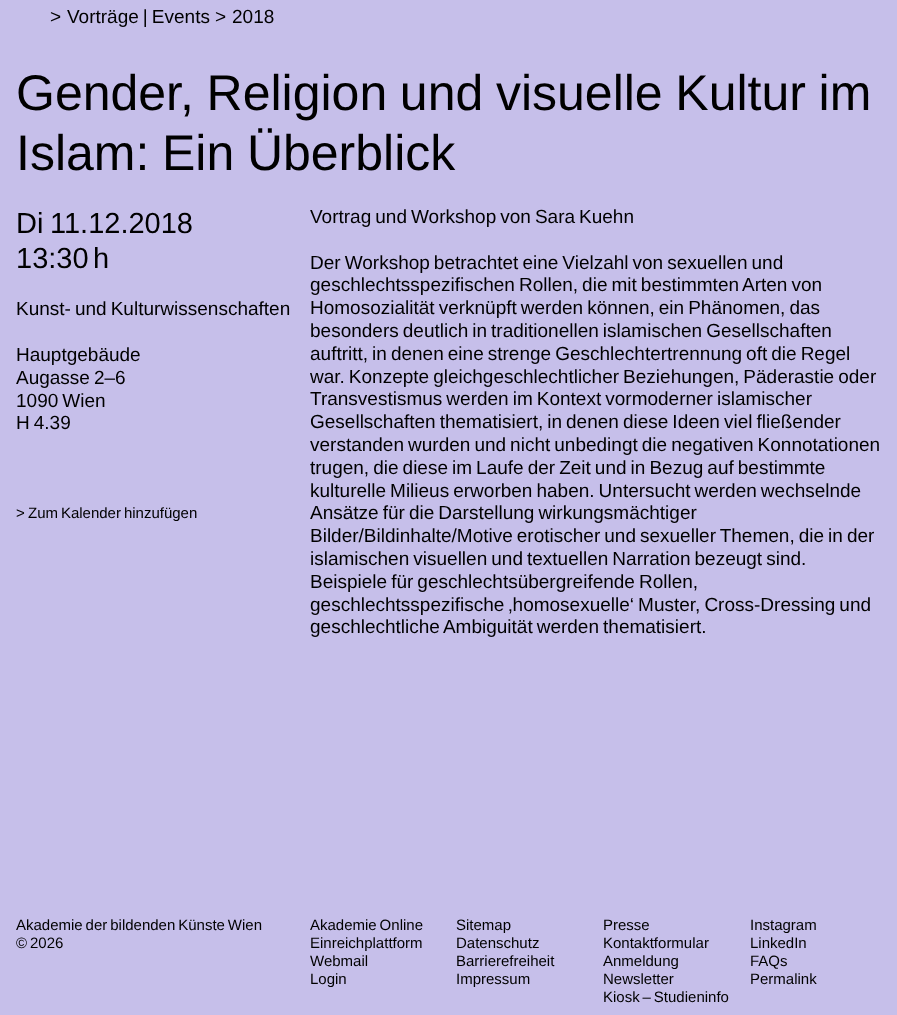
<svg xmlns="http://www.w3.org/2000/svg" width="897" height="1015">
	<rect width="100%" height="100%" fill="#C6BFEA" />
	<g font-family="Liberation Sans" font-size="19" fill="#000000">
		<text x="50" y="23">&gt;</text>
		<text x="67" y="23" word-spacing="-1.25">Vorträge | Events</text>
		<text x="215" y="23">&gt;</text>
		<text x="232" y="23">2018</text>
	</g>
	<g font-family="Liberation Sans" font-size="50" fill="#000000">
		<text x="16" y="110" word-spacing="-1.25">Gender, Religion und visuelle Kultur im</text>
		<text x="16" y="170" word-spacing="-1.25">Islam: Ein Überblick</text>
	</g>
	<g font-family="Liberation Sans" font-size="29" fill="#000000">
		<text x="16" y="233">Di</text>
		<text x="50" y="233">11.12.2018</text>
		<text x="16" y="268">13:30</text>
		<text x="93" y="268">h</text>
	</g>
	<g font-family="Liberation Sans" font-size="19" fill="#000000">
		<text x="16" y="315" word-spacing="-1.25">Kunst- und Kulturwissenschaften</text>
		<text x="16" y="361">Hauptgebäude</text>
		<text x="16" y="384" word-spacing="-1.25">Augasse 2–6</text>
		<text x="16" y="407" word-spacing="-1.25">1090 Wien</text>
		<text x="16" y="429" word-spacing="-1.25">H 4.39</text>
		<text x="310" y="223" word-spacing="-1.25">Vortrag und Workshop von Sara Kuehn</text>
		<text x="310" y="269" word-spacing="-1.25">Der Workshop betrachtet eine Vielzahl von sexuellen und</text>
		<text x="310" y="291" word-spacing="-1.25">geschlechtsspezifischen Rollen, die mit bestimmten Arten von</text>
		<text x="310" y="314" word-spacing="-1.25">Homosozialität verknüpft werden können, ein Phänomen, das</text>
		<text x="310" y="337" word-spacing="-1.25">besonders deutlich in traditionellen islamischen Gesellschaften</text>
		<text x="310" y="360" word-spacing="-1.25">auftritt, in denen eine strenge Geschlechtertrennung oft die Regel</text>
		<text x="310" y="383" word-spacing="-1.25">war. Konzepte gleichgeschlechtlicher Beziehungen, Päderastie oder</text>
		<text x="310" y="405" word-spacing="-1.25">Transvestismus werden im Kontext vormoderner islamischer</text>
		<text x="310" y="428" word-spacing="-1.25">Gesellschaften thematisiert, in denen diese Ideen viel fließender</text>
		<text x="310" y="451" word-spacing="-1.25">verstanden wurden und nicht unbedingt die negativen Konnotationen</text>
		<text x="310" y="474" word-spacing="-1.25">trugen, die diese im Laufe der Zeit und in Bezug auf bestimmte</text>
		<text x="310" y="497" word-spacing="-1.25">kulturelle Milieus erworben haben. Untersucht werden wechselnde</text>
		<text x="310" y="519" word-spacing="-1.25">Ansätze für die Darstellung wirkungsmächtiger</text>
		<text x="310" y="542" word-spacing="-1.25">Bilder/Bildinhalte/Motive erotischer und sexueller Themen, die in der</text>
		<text x="310" y="565" word-spacing="-1.25">islamischen visuellen und textuellen Narration bezeugt sind.</text>
		<text x="310" y="588" word-spacing="-1.25">Beispiele für geschlechtsübergreifende Rollen,</text>
		<text x="310" y="611" word-spacing="-1.25">geschlechtsspezifische ‚homosexuelle‘ Muster, Cross-Dressing und</text>
		<text x="310" y="633" word-spacing="-1.25">geschlechtliche Ambiguität werden thematisiert.</text>
	</g>
	<g font-family="Liberation Sans" font-size="15" fill="#000000">
		<text x="16" y="518">&gt;</text>
		<text x="28" y="518" word-spacing="-1.25">Zum Kalender hinzufügen</text>
		<text x="16" y="930" word-spacing="-1.25">Akademie der bildenden Künste Wien</text>
		<text x="16" y="948" word-spacing="-1.25">© 2026</text>
		<text x="310" y="930" word-spacing="-1.25">Akademie Online</text>
		<text x="310" y="948">Einreichplattform</text>
		<text x="310" y="966">Webmail</text>
		<text x="310" y="984">Login</text>
		<text x="456" y="930">Sitemap</text>
		<text x="456" y="948">Datenschutz</text>
		<text x="456" y="966">Barrierefreiheit</text>
		<text x="456" y="984">Impressum</text>
		<text x="603" y="930">Presse</text>
		<text x="603" y="948">Kontaktformular</text>
		<text x="603" y="966">Anmeldung</text>
		<text x="603" y="984">Newsletter</text>
		<text x="603" y="1002" word-spacing="-1.25">Kiosk – Studieninfo</text>
		<text x="750" y="930">Instagram</text>
		<text x="750" y="948">LinkedIn</text>
		<text x="750" y="966">FAQs</text>
		<text x="750" y="984">Permalink</text>
	</g>
</svg>
